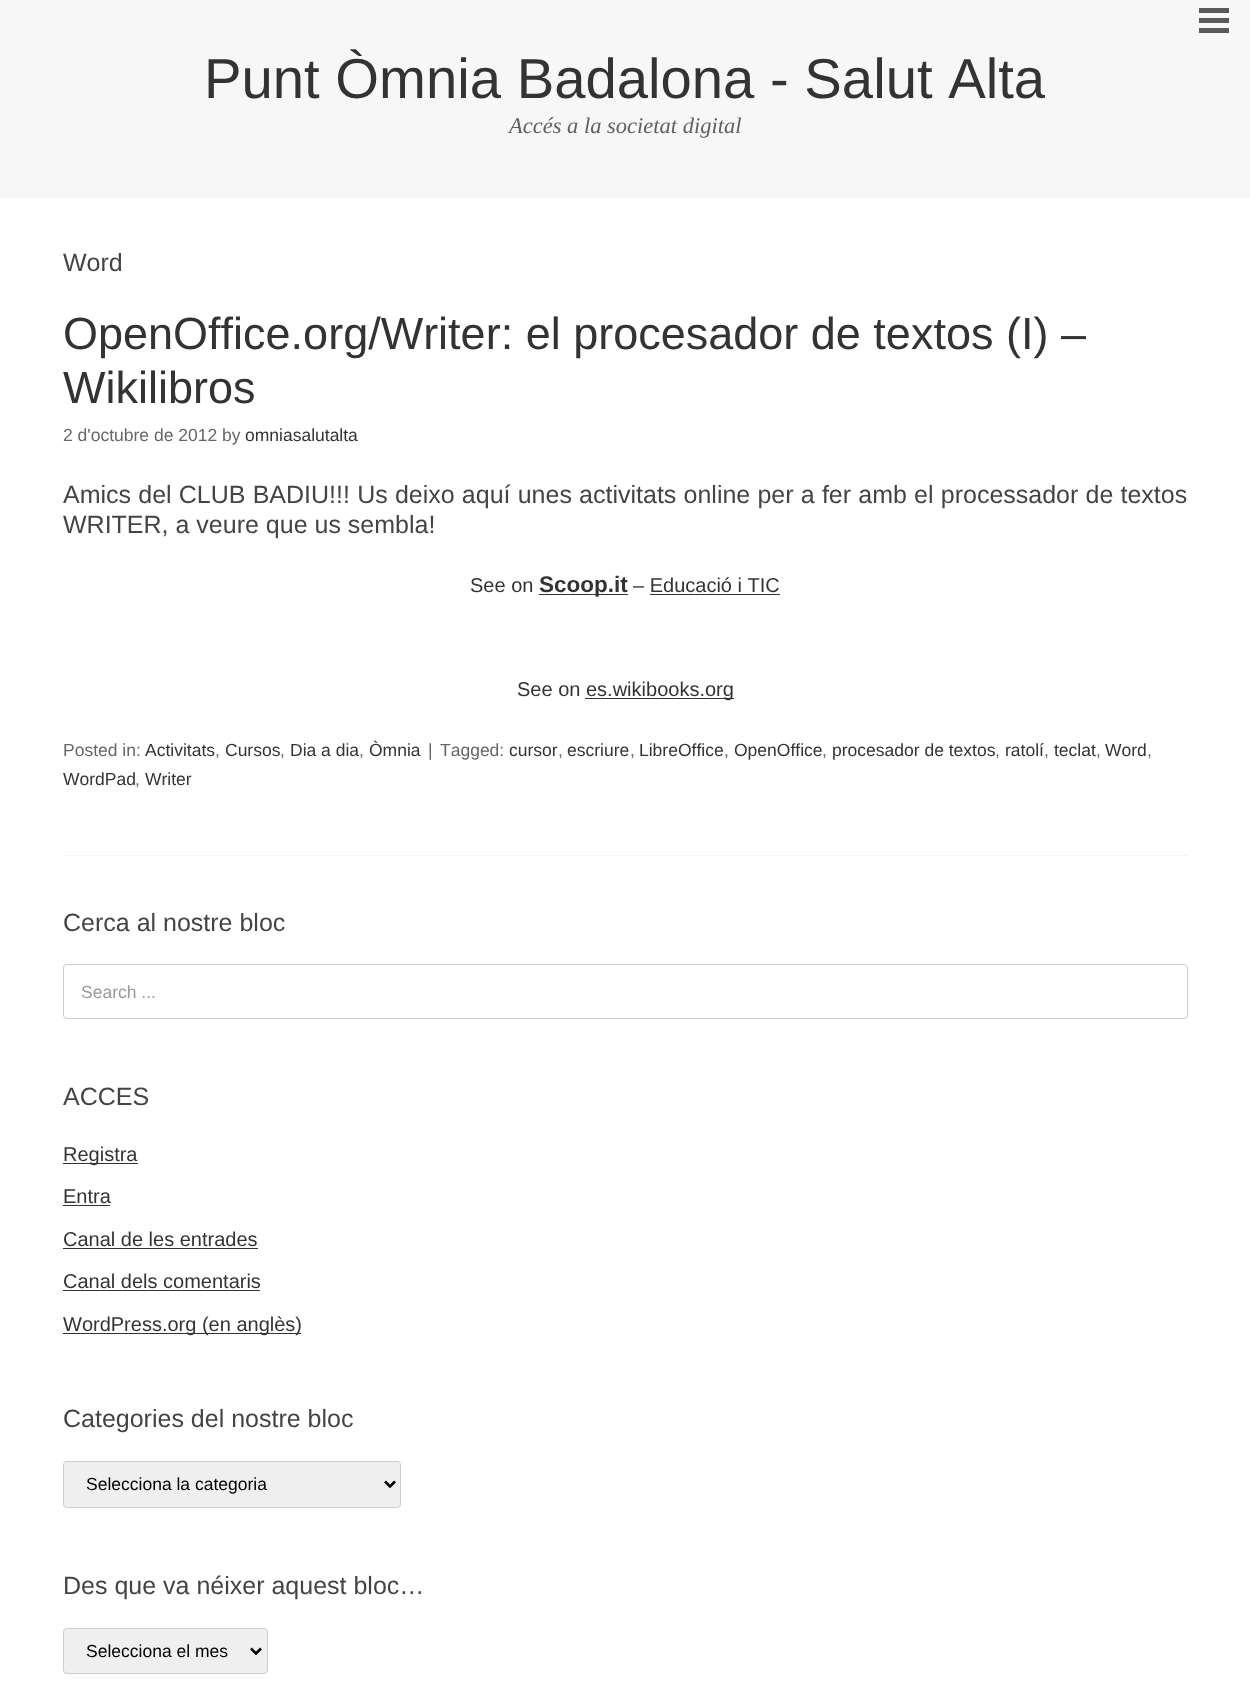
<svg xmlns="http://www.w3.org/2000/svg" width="1250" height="1683">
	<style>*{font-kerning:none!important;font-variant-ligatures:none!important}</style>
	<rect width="100%" height="100%" fill="#FFFFFF" />
	<rect x="0" y="0" width="1250" height="198" fill="#F7F7F7" />
	<rect x="1199" y="8" width="30" height="5" fill="#5A5A5A" />
	<rect x="1199" y="28" width="30" height="5" fill="#5A5A5A" />
	<rect x="1199" y="18" width="30" height="5" fill="#5A5A5A" />
	<text x="204" y="98" font-family="Liberation Sans" font-size="56.25" fill="#333333">Punt Òmnia Badalona - Salut Alta</text>
	<text x="509" y="133" font-family="Liberation Serif" font-size="22.5" font-style="italic" fill="#606060">Accés a la societat digital</text>
	<text x="63" y="271" font-family="Liberation Sans" font-size="25" fill="#444444">Word</text>
	<g font-family="Liberation Sans" font-size="45" fill="#333333">
		<text x="63" y="349">OpenOffice.org/Writer: el procesador de textos (I) –</text>
		<text x="63" y="403">Wikilibros</text>
	</g>
	<text x="63" y="441" font-family="Liberation Sans" font-size="17.5" fill="#666666">2 d'octubre de 2012 by</text>
	<text x="245" y="441" font-family="Liberation Sans" font-size="17.5" fill="#333333">omniasalutalta</text>
	<g font-family="Liberation Sans" font-size="25" fill="#444444">
		<text x="63" y="503" word-spacing="0.25">Amics del CLUB BADIU!!! Us deixo aquí unes activitats online per a fer amb el processador de textos</text>
		<text x="63" y="533">WRITER, a veure que us sembla!</text>
	</g>
	<text x="470" y="592" font-family="Liberation Sans" font-size="20" fill="#333333">See on</text>
	<rect x="539" y="594" width="89" height="1" fill="#333333" />
	<text x="539" y="592" font-family="Liberation Sans" font-size="22.5" font-weight="700" fill="#333333">Scoop.it</text>
	<text x="633" y="592" font-family="Liberation Sans" font-size="20" fill="#333333">– Educació i TIC</text>
	<rect x="650" y="594" width="130" height="1" fill="#333333" />
	<text x="517" y="696" font-family="Liberation Sans" font-size="20" fill="#333333">See on</text>
	<rect x="585" y="698" width="149" height="1" fill="#333333" />
	<text x="586" y="696" font-family="Liberation Sans" font-size="20" fill="#333333">es.wikibooks.org</text>
	<text x="63" y="756" font-family="Liberation Sans" font-size="17.5" fill="#666666">Posted in:</text>
	<text x="145" y="756" font-family="Liberation Sans" font-size="17.5" fill="#333333">Activitats</text>
	<text x="215" y="756" font-family="Liberation Sans" font-size="17.5" fill="#666666">,</text>
	<text x="225" y="756" font-family="Liberation Sans" font-size="17.5" fill="#333333">Cursos</text>
	<text x="280" y="756" font-family="Liberation Sans" font-size="17.5" fill="#666666">,</text>
	<text x="290" y="756" font-family="Liberation Sans" font-size="17.5" fill="#333333">Dia a dia</text>
	<text x="359" y="756" font-family="Liberation Sans" font-size="17.5" fill="#666666">,</text>
	<text x="369" y="756" font-family="Liberation Sans" font-size="17.5" fill="#333333">Òmnia</text>
	<g font-family="Liberation Sans" font-size="17.5" fill="#666666">
		<text x="428" y="756">|</text>
		<text x="440" y="756">Tagged:</text>
	</g>
	<text x="509" y="756" font-family="Liberation Sans" font-size="17.5" fill="#333333">cursor</text>
	<text x="558" y="756" font-family="Liberation Sans" font-size="17.5" fill="#666666">,</text>
	<text x="567" y="756" font-family="Liberation Sans" font-size="17.5" fill="#333333">escriure</text>
	<text x="630" y="756" font-family="Liberation Sans" font-size="17.5" fill="#666666">,</text>
	<text x="639" y="756" font-family="Liberation Sans" font-size="17.5" fill="#333333">LibreOffice</text>
	<text x="724" y="756" font-family="Liberation Sans" font-size="17.5" fill="#666666">,</text>
	<text x="734" y="756" font-family="Liberation Sans" font-size="17.5" fill="#333333">OpenOffice</text>
	<text x="822" y="756" font-family="Liberation Sans" font-size="17.5" fill="#666666">,</text>
	<text x="832" y="756" font-family="Liberation Sans" font-size="17.5" fill="#333333">procesador de textos</text>
	<text x="995" y="756" font-family="Liberation Sans" font-size="17.5" fill="#666666">,</text>
	<text x="1005" y="756" font-family="Liberation Sans" font-size="17.5" fill="#333333">ratolí</text>
	<text x="1044" y="756" font-family="Liberation Sans" font-size="17.5" fill="#666666">,</text>
	<text x="1054" y="756" font-family="Liberation Sans" font-size="17.5" fill="#333333">teclat</text>
	<text x="1096" y="756" font-family="Liberation Sans" font-size="17.5" fill="#666666">,</text>
	<text x="1105" y="756" font-family="Liberation Sans" font-size="17.5" fill="#333333">Word</text>
	<text x="1147" y="756" font-family="Liberation Sans" font-size="17.5" fill="#666666">,</text>
	<text x="63" y="785" font-family="Liberation Sans" font-size="17.5" fill="#333333">WordPad</text>
	<text x="135" y="785" font-family="Liberation Sans" font-size="17.5" fill="#666666">,</text>
	<text x="145" y="785" font-family="Liberation Sans" font-size="17.5" fill="#333333">Writer</text>
	<rect x="63" y="855" width="1125" height="1" fill="#F5F5F5" />
	<text x="63" y="931" font-family="Liberation Sans" font-size="25" fill="#444444">Cerca al nostre bloc</text>
	<rect x="63.5" y="964.5" width="1124" height="54" rx="3.5" fill="none" stroke="#CCCCCC" />
	<text x="81" y="998" font-family="Liberation Sans" font-size="17.5" fill="#999999">Search ...</text>
	<text x="63" y="1105" font-family="Liberation Sans" font-size="25" fill="#444444">ACCES</text>
	<rect x="63" y="1163" width="75" height="1" fill="#333333" />
	<g font-family="Liberation Sans" font-size="20" fill="#333333">
		<text x="63" y="1161">Registra</text>
		<text x="63" y="1203">Entra</text>
	</g>
	<rect x="63" y="1205" width="47" height="1" fill="#333333" />
	<text x="63" y="1246" font-family="Liberation Sans" font-size="20" fill="#333333">Canal de les entrades</text>
	<rect x="63" y="1248" width="195" height="1" fill="#333333" />
	<text x="63" y="1288" font-family="Liberation Sans" font-size="20" fill="#333333">Canal dels comentaris</text>
	<rect x="63" y="1290" width="197" height="1" fill="#333333" />
	<rect x="63" y="1333" width="238" height="1" fill="#333333" />
	<text x="63" y="1331" font-family="Liberation Sans" font-size="20" fill="#333333">WordPress.org (en anglès)</text>
	<text x="63" y="1427" font-family="Liberation Sans" font-size="25" fill="#444444">Categories del nostre bloc</text>
	<rect x="63.5" y="1461.5" width="337" height="46" rx="3.5" fill="#EFEFEF" stroke="#CCCCCC" />
	<path d="M385 1481.5L390 1486.5L395 1481.5" fill="none" stroke="#000000" stroke-width="2.5" />
	<text x="86" y="1490" font-family="Liberation Sans" font-size="17.5" fill="#000000">Selecciona la categoria</text>
	<text x="63" y="1594" font-family="Liberation Sans" font-size="25" fill="#444444">Des que va néixer aquest bloc…</text>
	<rect x="63.5" y="1628.5" width="204" height="45" rx="3.5" fill="#EFEFEF" stroke="#CCCCCC" />
	<path d="M251 1648.5L256 1653.5L261 1648.5" fill="none" stroke="#000000" stroke-width="2.5" />
	<text x="86" y="1657" font-family="Liberation Sans" font-size="17.5" fill="#000000">Selecciona el mes</text>
</svg>
